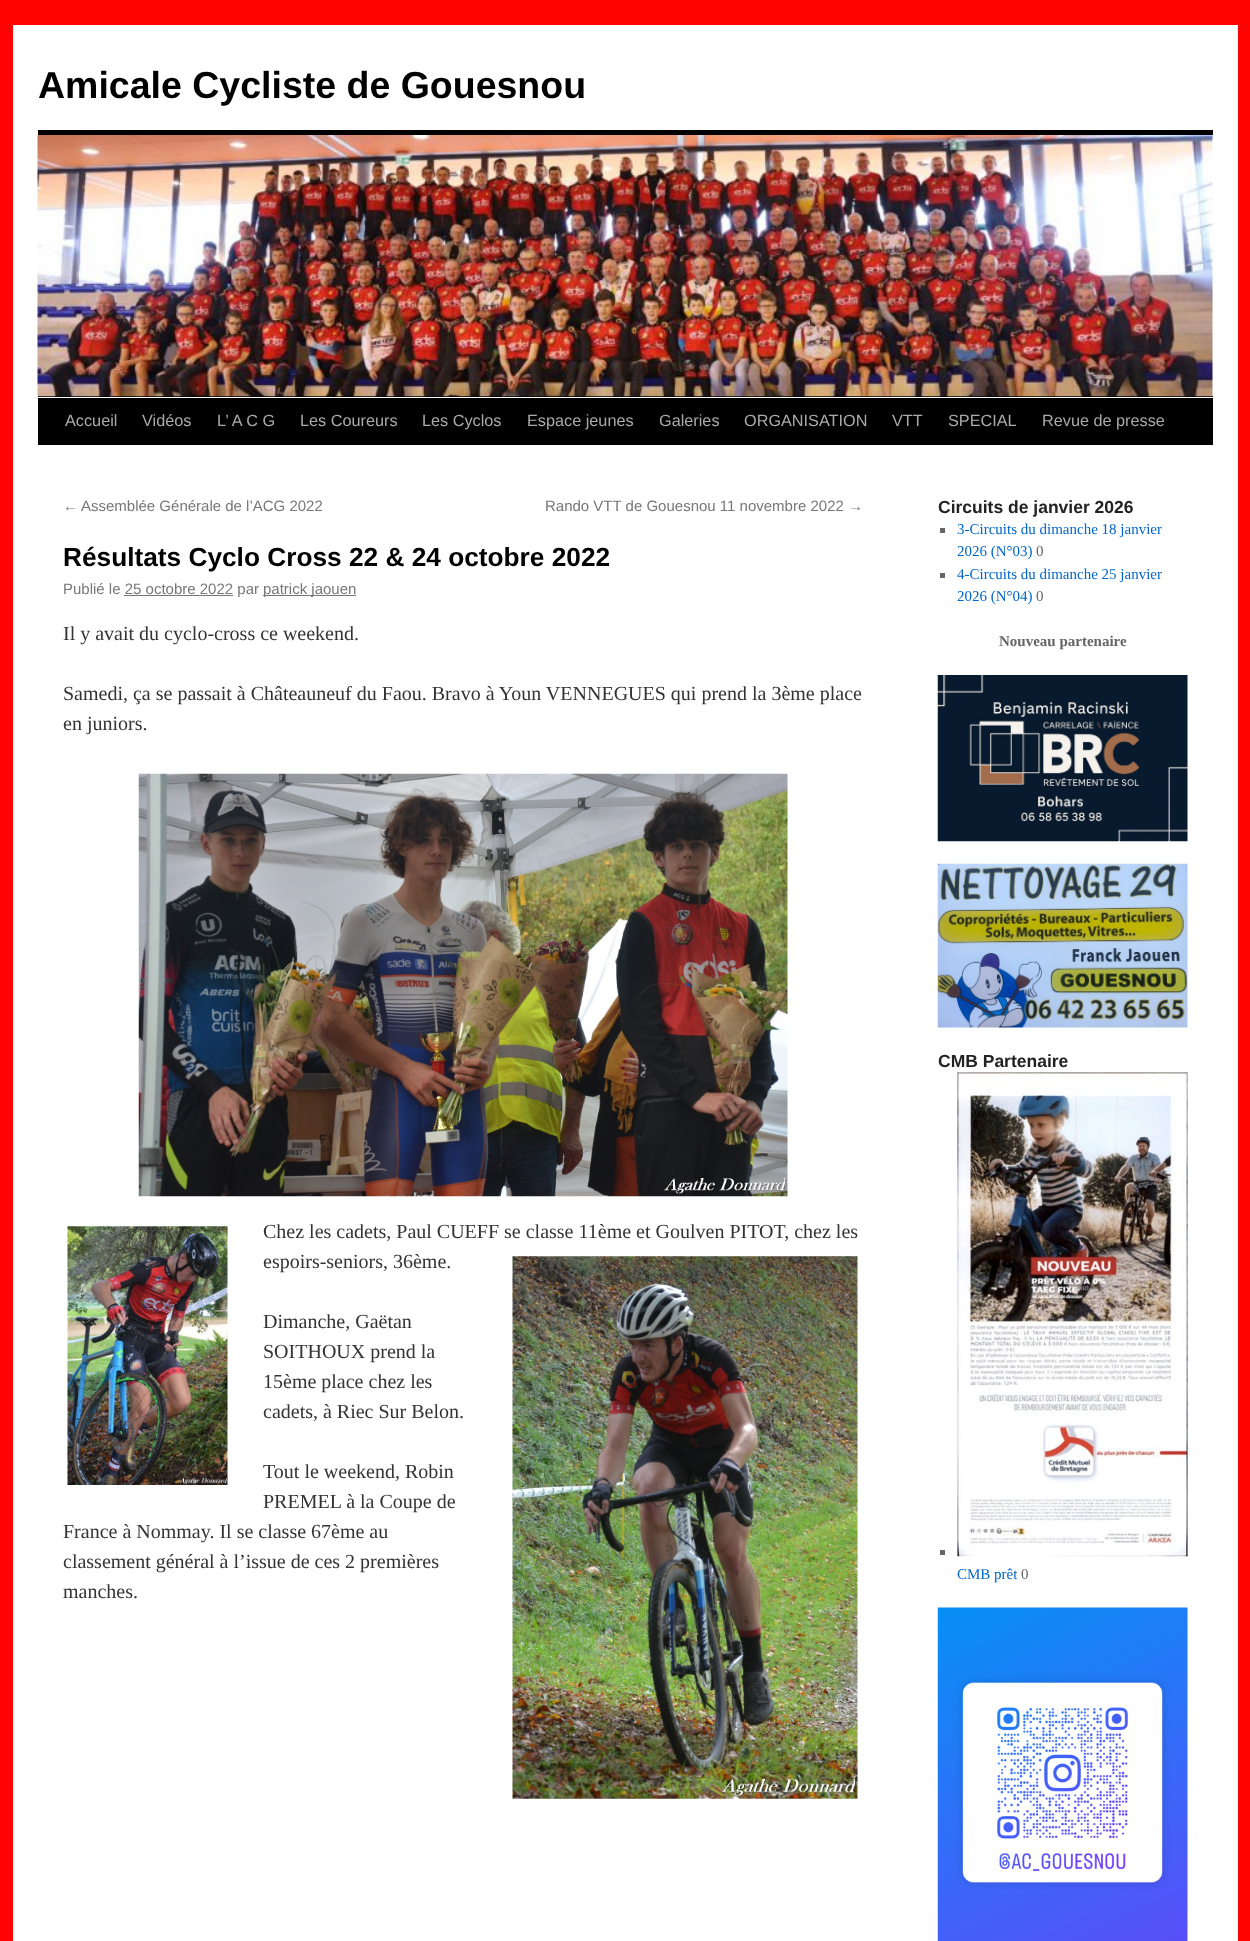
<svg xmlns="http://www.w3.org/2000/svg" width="1250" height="1941">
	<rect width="100%" height="100%" fill="#FF0202" />
	<rect x="13" y="25" width="1225" height="1916" fill="#FFFFFF" />
	<text x="38" y="98" font-family="Liberation Sans" font-size="37.5" font-weight="700" fill="#000000">Amicale Cycliste de Gouesnou</text>
	<rect x="38" y="130" width="1175" height="5" fill="#000000" />
	<rect x="38" y="396" width="1175" height="1" fill="#000000" />
	<image x="37" y="135" width="1176" height="262" href="assets/img1.png" />
	<rect x="38" y="398" width="1175" height="47" fill="#000000" />
	<g font-family="Liberation Sans" font-size="16.25" fill="#AAAAAA">
		<text x="65" y="426">Accueil</text>
		<text x="142" y="426">Vidéos</text>
		<text x="217" y="426">L’ A C G</text>
		<text x="300" y="426">Les Coureurs</text>
		<text x="422" y="426">Les Cyclos</text>
		<text x="527" y="426">Espace jeunes</text>
		<text x="659" y="426">Galeries</text>
		<text x="744" y="426">ORGANISATION</text>
		<text x="892" y="426">VTT</text>
		<text x="948" y="426">SPECIAL</text>
		<text x="1042" y="426">Revue de presse</text>
	</g>
	<g font-family="Liberation Sans" font-size="15" fill="#777777">
		<text x="63" y="511">←</text>
		<text x="81" y="511">Assemblée Générale de l’ACG 2022</text>
		<text x="545" y="511">Rando VTT de Gouesnou 11 novembre 2022 →</text>
	</g>
	<text x="63" y="566" font-family="Liberation Sans" font-size="26.25" font-weight="700" fill="#000000">Résultats Cyclo Cross 22 &amp; 24 octobre 2022</text>
	<text x="63" y="594" font-family="Liberation Sans" font-size="15" fill="#777777">Publié le 25 octobre 2022 par</text>
	<rect x="263" y="595" width="93" height="1" fill="#777777" />
	<text x="263" y="594" font-family="Liberation Sans" font-size="15" fill="#777777">patrick jaouen</text>
	<rect x="124" y="595" width="109" height="1" fill="#777777" />
	<g font-family="Liberation Serif" font-size="20" fill="#333333">
		<text x="63" y="640">Il y avait du cyclo-cross ce weekend.</text>
		<text x="63" y="700">Samedi, ça se passait à Châteauneuf du Faou. Bravo à Youn VENNEGUES qui prend la 3ème place</text>
		<text x="63" y="730">en juniors.</text>
	</g>
	<image x="138" y="773" width="650" height="424" href="assets/img2.png" />
	<image x="67" y="1226" width="161" height="259" href="assets/img3.png" />
	<g font-family="Liberation Serif" font-size="20" fill="#333333">
		<text x="263" y="1238">Chez les cadets, Paul CUEFF se classe 11ème et Goulven PITOT, chez les</text>
		<text x="263" y="1268">espoirs-seniors, 36ème.</text>
	</g>
	<image x="512" y="1256" width="346" height="543" href="assets/img4.png" />
	<g font-family="Liberation Serif" font-size="20" fill="#333333">
		<text x="263" y="1328">Dimanche, Gaëtan</text>
		<text x="263" y="1358">SOITHOUX prend la</text>
		<text x="263" y="1388">15ème place chez les</text>
		<text x="263" y="1418">cadets, à Riec Sur Belon.</text>
		<text x="263" y="1478">Tout le weekend, Robin</text>
		<text x="263" y="1508">PREMEL à la Coupe de</text>
		<text x="63" y="1538">France à Nommay. Il se classe 67ème au</text>
		<text x="63" y="1568">classement général à l’issue de ces 2 premières</text>
		<text x="63" y="1598">manches.</text>
	</g>
	<text x="938" y="513" font-family="Liberation Sans" font-size="17.5" font-weight="700" fill="#222222">Circuits de janvier 2026</text>
	<rect x="940" y="528" width="5" height="5" fill="#666666" />
	<g font-family="Liberation Serif" font-size="15" fill="#0066CC">
		<text x="957" y="534">3-Circuits du dimanche 18 janvier</text>
		<text x="957" y="556">2026 (N°03)</text>
	</g>
	<text x="1036" y="556" font-family="Liberation Serif" font-size="15" fill="#666666">0</text>
	<rect x="940" y="573" width="5" height="5" fill="#666666" />
	<g font-family="Liberation Serif" font-size="15" fill="#0066CC">
		<text x="957" y="579">4-Circuits du dimanche 25 janvier</text>
		<text x="957" y="601">2026 (N°04)</text>
	</g>
	<text x="1036" y="601" font-family="Liberation Serif" font-size="15" fill="#666666">0</text>
	<text x="999" y="646" font-family="Liberation Serif" font-size="15" font-weight="700" fill="#666666">Nouveau partenaire</text>
	<image x="937" y="675" width="251" height="167" href="assets/img5.png" />
	<image x="937" y="863" width="251" height="165" href="assets/img6.png" />
	<text x="938" y="1067" font-family="Liberation Sans" font-size="17.5" font-weight="700" fill="#222222">CMB Partenaire</text>
	<rect x="940" y="1550" width="5" height="5" fill="#666666" />
	<image x="957" y="1072" width="231" height="485" href="assets/img7.png" />
	<text x="957" y="1579" font-family="Liberation Serif" font-size="15" fill="#0066CC">CMB prêt</text>
	<text x="1021" y="1579" font-family="Liberation Serif" font-size="15" fill="#666666">0</text>
	<image x="937" y="1607" width="251" height="334" href="assets/img8.png" />
</svg>
